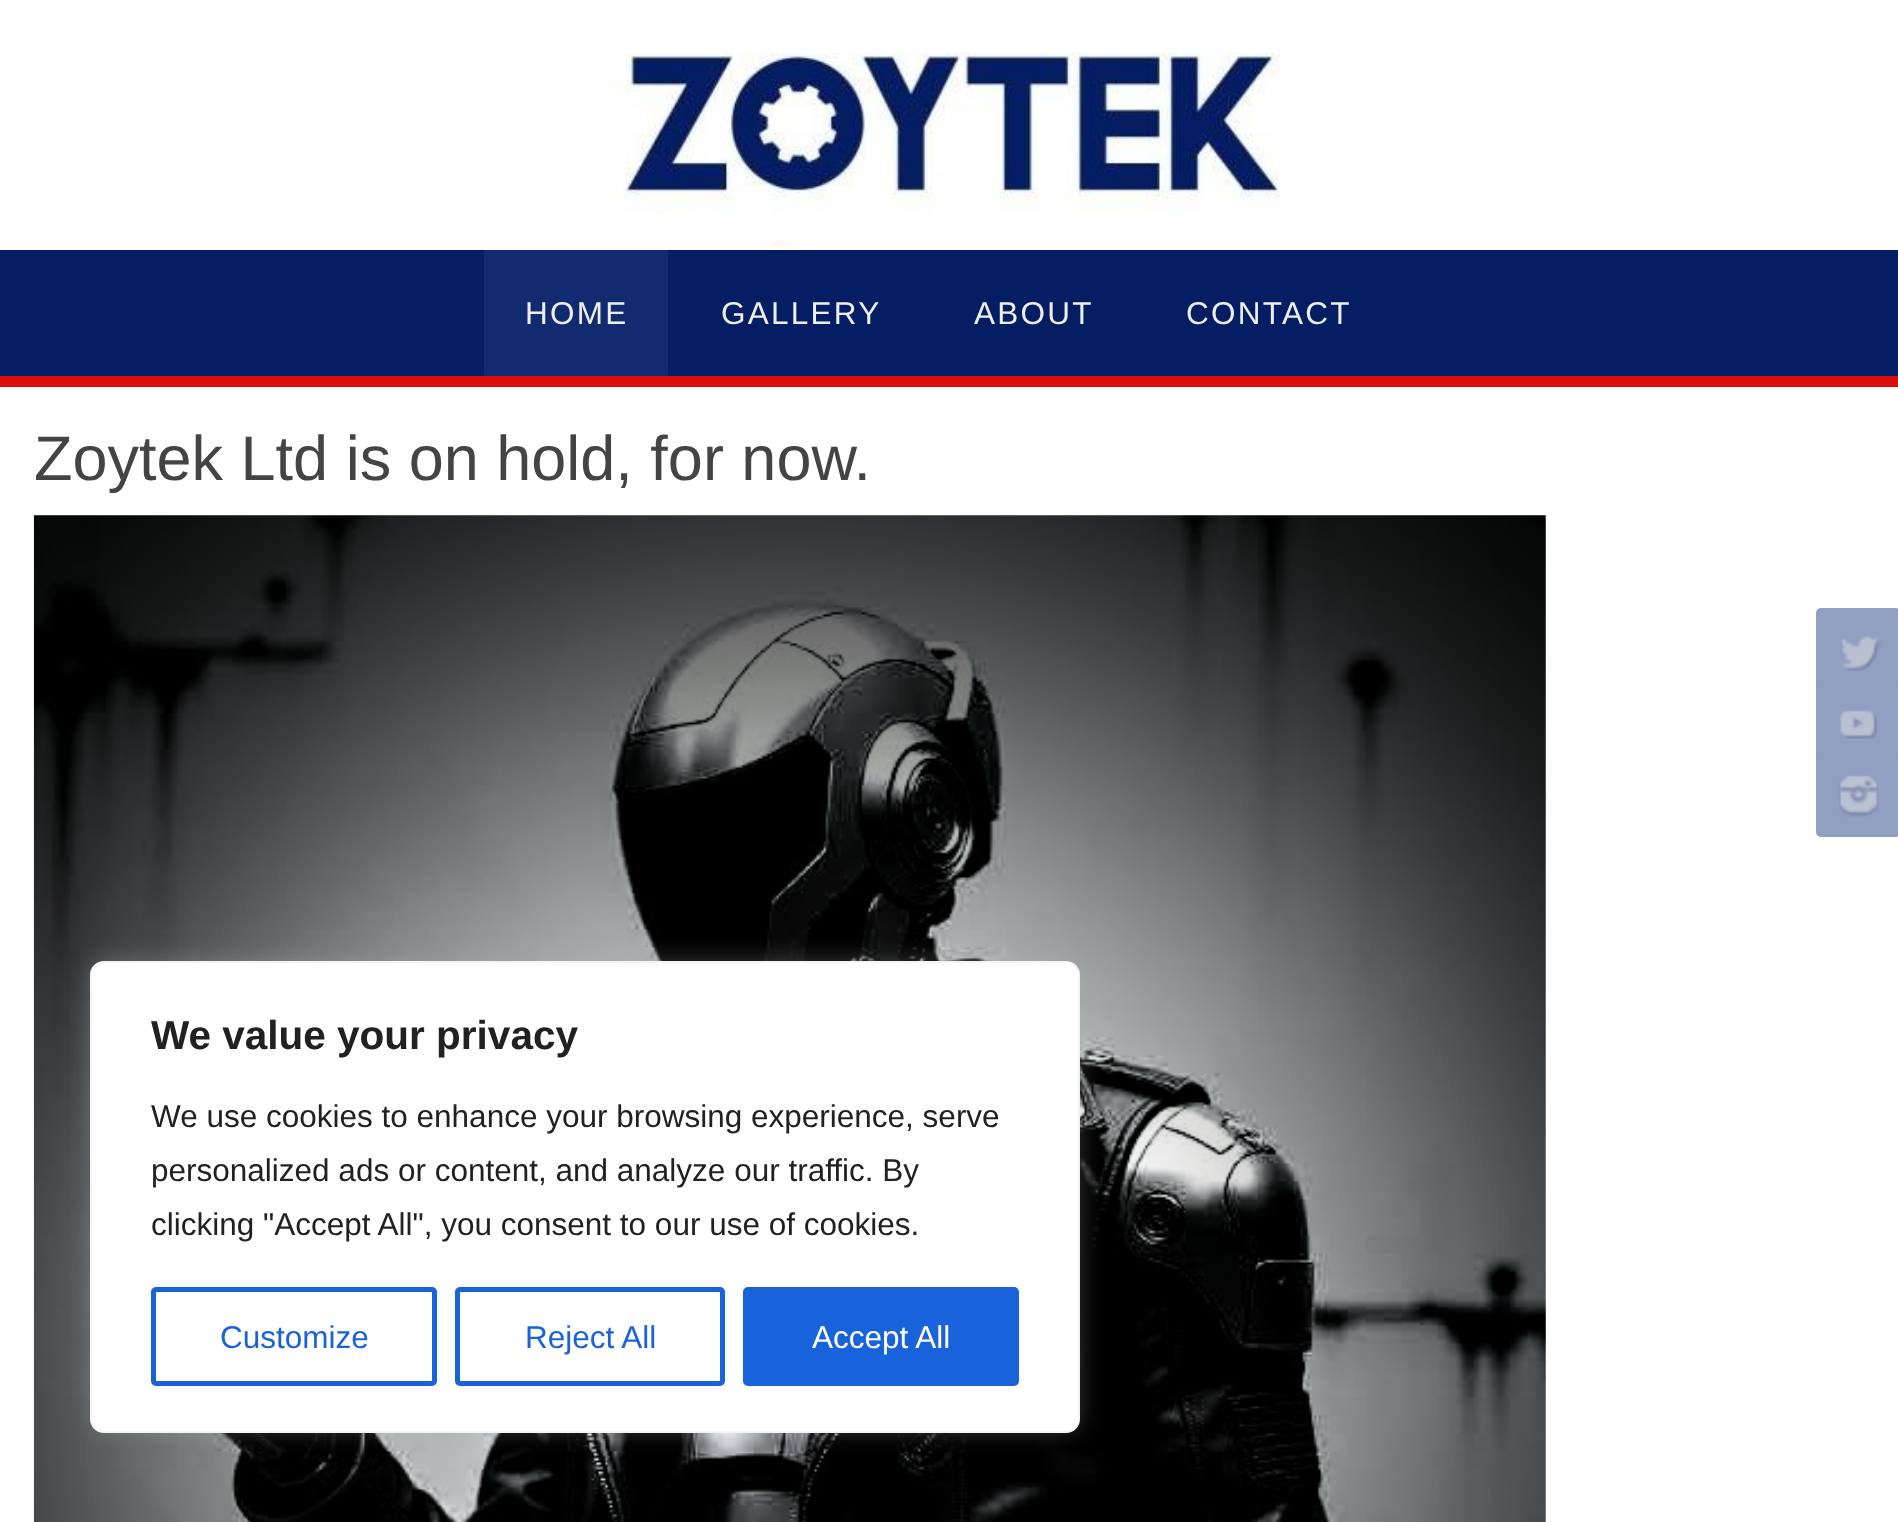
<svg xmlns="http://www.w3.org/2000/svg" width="1898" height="1522">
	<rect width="100%" height="100%" fill="#DD0D0D" />
	<rect x="0" y="0" width="1898" height="250" fill="#FFFFFF" />
	<image x="613" y="52" width="667" height="197" href="assets/img1.png" />
	<rect x="0" y="250" width="1898" height="126" fill="#041D63" />
	<rect x="484" y="250" width="184" height="126" fill="#112A70" />
	<g font-family="Liberation Sans" font-size="31.5" letter-spacing="2.25" fill="#EEEEEE">
		<text x="525" y="324">HOME</text>
		<text x="721" y="324">GALLERY</text>
		<text x="974" y="324">ABOUT</text>
		<text x="1186" y="324">CONTACT</text>
	</g>
	<rect x="0" y="387" width="1898" height="1135" fill="#FFFFFF" />
	<text x="34" y="480" font-family="Liberation Sans" font-size="63" fill="#444444">Zoytek Ltd is on hold, for now.</text>
	<image x="33" y="515" width="1513" height="1007" href="assets/img2.png" />
	<rect x="1816" y="608" width="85" height="85" rx="5" fill="#919FC3" />
	<image x="1841" y="636" width="40" height="35" href="assets/img3.png" />
	<rect x="1816" y="680" width="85" height="85" rx="5" fill="#919FC3" />
	<image x="1840" y="710" width="37" height="29" href="assets/img4.png" />
	<rect x="1816" y="752" width="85" height="85" rx="5" fill="#919FC3" />
	<image x="1838" y="775" width="41" height="42" href="assets/img5.png" />
	<rect x="90" y="959" width="990" height="472" rx="14" fill="#ACABAB" fill-opacity="0.3" filter="blur(11px)" />
	<rect x="91" y="962" width="988" height="470" rx="13" fill="#FFFFFF" stroke="#F4F4F4" stroke-width="2" />
	<text x="151" y="1049" font-family="Liberation Sans" font-size="40.5" font-weight="700" fill="#212121">We value your privacy</text>
	<g font-family="Liberation Sans" font-size="31.5" fill="#212121">
		<text x="151" y="1127">We use cookies to enhance your browsing experience, serve</text>
		<text x="151" y="1181">personalized ads or content, and analyze our traffic. By</text>
		<text x="151" y="1235">clicking "Accept All", you consent to our use of cookies.</text>
	</g>
	<rect x="153.5" y="1289.5" width="281" height="94" rx="2.5" fill="none" stroke="#1863DC" stroke-width="5" />
	<text x="220" y="1348" font-family="Liberation Sans" font-size="31.5" fill="#1863DC">Customize</text>
	<rect x="457.5" y="1289.5" width="265" height="94" rx="2.5" fill="none" stroke="#1863DC" stroke-width="5" />
	<text x="525" y="1348" font-family="Liberation Sans" font-size="31.5" fill="#1863DC">Reject All</text>
	<rect x="745.5" y="1289.5" width="271" height="94" rx="2.5" fill="#1863DC" stroke="#1863DC" stroke-width="5" />
	<text x="812" y="1348" font-family="Liberation Sans" font-size="31.5" fill="#FFFFFF">Accept All</text>
</svg>
